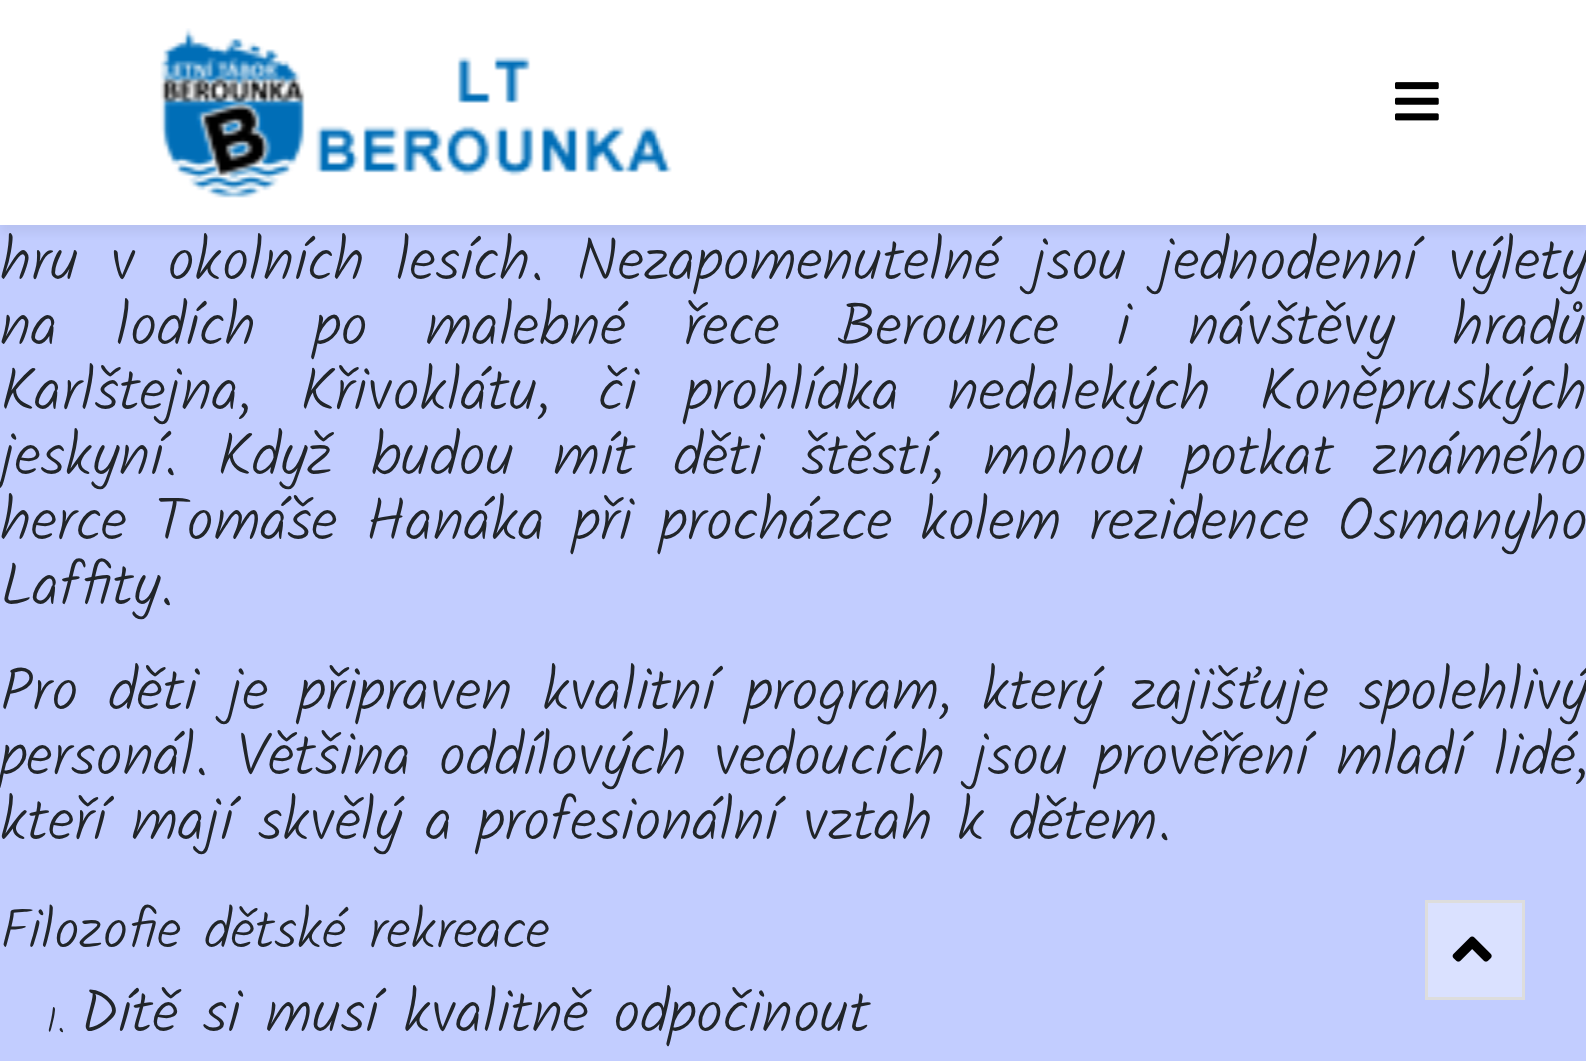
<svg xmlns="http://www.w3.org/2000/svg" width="1586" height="1061">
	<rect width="100%" height="100%" fill="#C2CDFF" />
	<rect x="0" y="8" width="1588" height="225" fill="#000000" fill-opacity="0.05" filter="blur(4px)" />
	<rect x="0" y="0" width="1586" height="225" fill="#FFFFFF" />
	<image x="160" y="28" width="512" height="170" href="assets/img1.png" />
	<image x="1395" y="82" width="44" height="39" href="assets/img2.png" />
	<g font-family="Kalam" font-size="60" font-weight="300" fill="#212529">
		<text x="0" y="280" word-spacing="7">hru v okolních lesích. Nezapomenutelné jsou jednodenní výlety</text>
		<text x="0" y="345" word-spacing="33.25">na lodích po malebné řece Berounce i návštěvy hradů</text>
		<text x="0" y="410" word-spacing="23.5">Karlštejna, Křivoklátu, či prohlídka nedalekých Koněpruských</text>
		<text x="0" y="475" word-spacing="14.25">jeskyní. Když budou mít děti štěstí, mohou potkat známého</text>
		<text x="0" y="540" word-spacing="3.25">herce Tomáše Hanáka při procházce kolem rezidence Osmanyho</text>
		<text x="0" y="605">Laffity.</text>
		<text x="0" y="710" word-spacing="5.5">Pro děti je připraven kvalitní program, který zajišťuje spolehlivý</text>
		<text x="0" y="775" word-spacing="3">personál. Většina oddílových vedoucích jsou prověření mladí lidé,</text>
		<text x="0" y="840">kteří mají skvělý a profesionální vztah k dětem.</text>
	</g>
	<text x="0" y="948" font-family="Kalam" font-size="55.75" font-weight="300" fill="#212529">Filozofie dětské rekreace</text>
	<text x="46" y="1032" font-family="Kalam" font-size="35" font-weight="300" fill="#212529">1.</text>
	<text x="80" y="1032" font-family="Kalam" font-size="60" font-weight="300" fill="#212529">Dítě si musí kvalitně odpočinout</text>
	<rect x="1426.5" y="901.5" width="97" height="97" fill="#DAE1FF" stroke="#DDDDDD" stroke-width="3" />
	<image x="1452" y="936" width="40" height="26" href="assets/img3.png" />
</svg>
